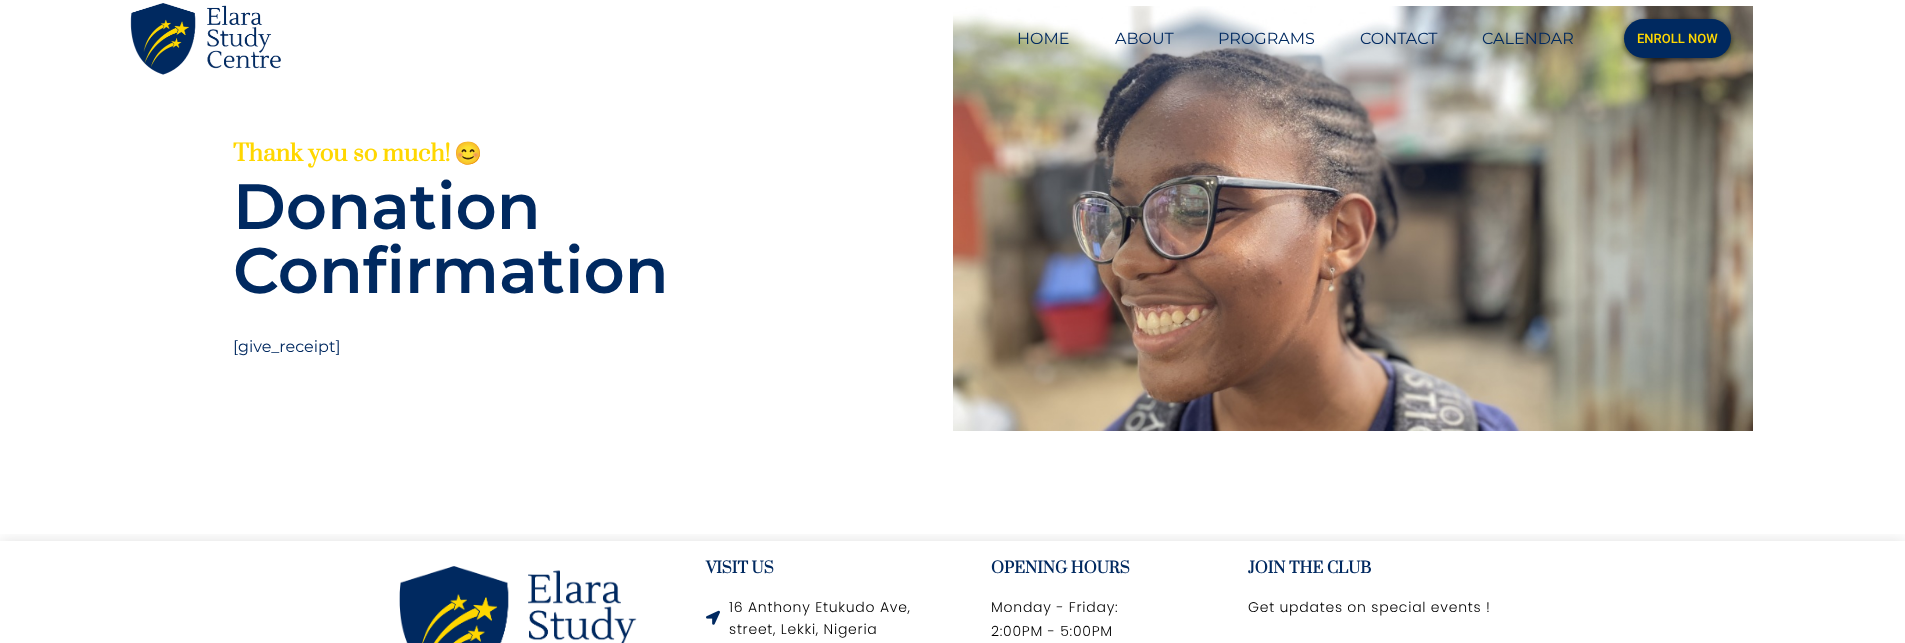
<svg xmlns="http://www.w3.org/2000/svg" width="1905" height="643">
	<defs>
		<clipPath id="clip1"><rect x="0" y="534" width="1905" height="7" /></clipPath>
	</defs>
	<rect width="100%" height="100%" fill="#FFFFFF" />
	<image x="130" y="3" width="151" height="72" href="assets/img1.png" />
	<image x="953" y="6" width="800" height="425" href="assets/img2.png" />
	<g font-family="Montserrat" font-size="16" fill="#002960">
		<text x="1017" y="44">HOME</text>
		<text x="1115" y="44">ABOUT</text>
		<text x="1218" y="44">PROGRAMS</text>
		<text x="1360" y="44">CONTACT</text>
		<text x="1482" y="44">CALENDAR</text>
	</g>
	<rect x="1623" y="20" width="109" height="41" rx="20.5" fill="#000000" fill-opacity="0.5" filter="blur(2.5px)" />
	<rect x="1624" y="19" width="107" height="39" rx="19.5" fill="#002960" />
	<text x="1637" y="43" font-family="Roboto" font-size="13" font-weight="500" fill="#FFD700">ENROLL NOW</text>
	<text x="233" y="161" font-family="Prata" font-size="22.5" font-weight="700" fill="#FFD700">Thank you so much!</text>
	<text x="454" y="161" font-family="Noto Color Emoji" font-size="22.5" font-weight="700" fill="#FFD700">😊</text>
	<g font-family="Montserrat" font-size="64" font-weight="600" fill="#002960">
		<text x="233" y="229">Donation</text>
		<text x="233" y="293">Confirmation</text>
	</g>
	<text x="233" y="352" font-family="Montserrat" font-size="16" fill="#002960">[give_receipt]</text>
	<g clip-path="url(#clip1)">
		<rect x="0" y="541" width="1905" height="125" fill="#000000" fill-opacity="0.12" filter="blur(7.5px)" />
	</g>
	<image x="399" y="566" width="238" height="77" href="assets/img3.png" />
	<text x="706" y="573" font-family="Prata" font-size="15" font-weight="700" fill="#002960">VISIT US</text>
	<image x="706" y="610" width="14" height="15" href="assets/img4.png" />
	<g font-family="Poppins" font-size="14" font-weight="300" letter-spacing="0.75" fill="#000000">
		<text x="729" y="612">16 Anthony Etukudo Ave,</text>
		<text x="729" y="634">street, Lekki, Nigeria</text>
	</g>
	<text x="991" y="573" font-family="Prata" font-size="15" font-weight="700" fill="#002960">OPENING HOURS</text>
	<g font-family="Poppins" font-size="14" font-weight="300" letter-spacing="0.75" fill="#000000">
		<text x="991" y="612">Monday - Friday:</text>
		<text x="991" y="636">2:00PM - 5:00PM</text>
	</g>
	<text x="1248" y="573" font-family="Prata" font-size="15" font-weight="700" fill="#002960">JOIN THE CLUB</text>
	<text x="1248" y="612" font-family="Poppins" font-size="14" font-weight="300" letter-spacing="0.75" fill="#000000">Get updates on special events !</text>
</svg>
